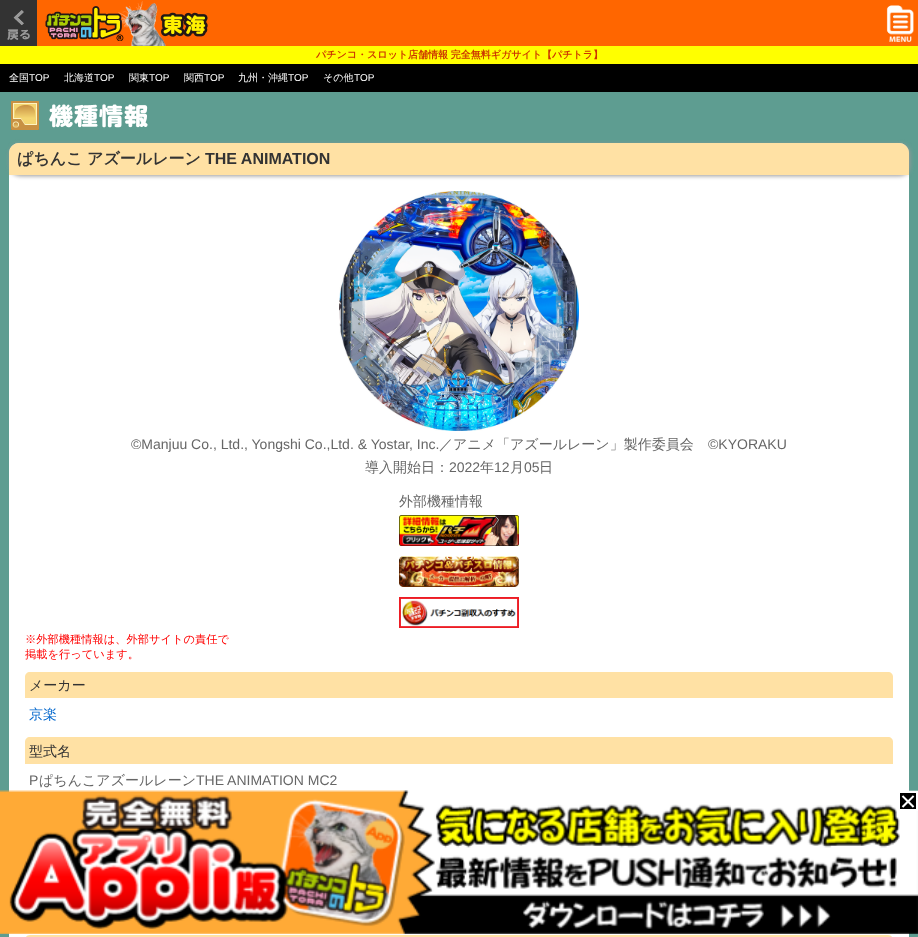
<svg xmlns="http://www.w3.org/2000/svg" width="918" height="937">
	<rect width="100%" height="100%" fill="#FF6600" />
	<rect x="0" y="0" width="37" height="46" fill="#333333" />
	<image x="7" y="10" width="23" height="30" href="assets/img1.png" />
	<image x="45" y="1" width="163" height="45" href="assets/img2.png" />
	<image x="886" y="5" width="28" height="37" href="assets/img3.png" />
	<rect x="0" y="46" width="918" height="18" fill="#FFFF00" />
	<text x="316" y="58" font-family="WenQuanYi Zen Hei" font-size="10" font-weight="700" fill="#CC3300">パチンコ・スロット店舗情報 完全無料ギガサイト【パチトラ】</text>
	<rect x="0" y="64" width="918" height="28" fill="#000000" />
	<text x="9" y="81" font-family="WenQuanYi Zen Hei" font-size="10" font-weight="500" fill="#FFFFFF">全国</text>
	<text x="29" y="81" font-family="Liberation Sans" font-size="10" fill="#FFFFFF">TOP</text>
	<text x="64" y="81" font-family="WenQuanYi Zen Hei" font-size="10" font-weight="500" fill="#FFFFFF">北海道</text>
	<text x="94" y="81" font-family="Liberation Sans" font-size="10" fill="#FFFFFF">TOP</text>
	<text x="129" y="81" font-family="WenQuanYi Zen Hei" font-size="10" font-weight="500" fill="#FFFFFF">関東</text>
	<text x="149" y="81" font-family="Liberation Sans" font-size="10" fill="#FFFFFF">TOP</text>
	<text x="184" y="81" font-family="WenQuanYi Zen Hei" font-size="10" font-weight="500" fill="#FFFFFF">関西</text>
	<text x="204" y="81" font-family="Liberation Sans" font-size="10" fill="#FFFFFF">TOP</text>
	<text x="238" y="81" font-family="WenQuanYi Zen Hei" font-size="10" font-weight="500" fill="#FFFFFF">九州・沖縄</text>
	<text x="288" y="81" font-family="Liberation Sans" font-size="10" fill="#FFFFFF">TOP</text>
	<text x="323" y="81" font-family="WenQuanYi Zen Hei" font-size="10" font-weight="500" fill="#FFFFFF">その他</text>
	<text x="354" y="81" font-family="Liberation Sans" font-size="10" fill="#FFFFFF">TOP</text>
	<rect x="0" y="92" width="918" height="845" fill="#5E9D91" />
	<image x="11" y="101" width="137" height="29" href="assets/img4.png" />
	<rect x="9" y="143" width="900" height="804" rx="10" fill="#FFFFFF" />
	<rect x="10" y="144" width="900" height="32" rx="10" fill="#999999" filter="blur(2px)" />
	<path d="M19 143H899C904.5 143 909 147.5 909 153V175H9V153C9 147.5 13.5 143 19 143Z" fill="#FFE1A4" />
	<g font-family="WenQuanYi Zen Hei" font-size="16" font-weight="700" fill="#333333">
		<text x="17" y="164">ぱちんこ</text>
		<text x="87" y="164">アズールレーン</text>
	</g>
	<text x="205" y="164" font-family="Liberation Sans" font-size="16" font-weight="700" fill="#333333">THE ANIMATION</text>
	<image x="339" y="191" width="240" height="240" href="assets/img5.png" />
	<text x="131" y="449" font-family="Liberation Sans" font-size="14" fill="#666666">©Manjuu Co., Ltd., Yongshi Co.,Ltd. &amp; Yostar, Inc.</text>
	<text x="439" y="449" font-family="WenQuanYi Zen Hei" font-size="14" font-weight="500" fill="#666666">／アニメ「アズールレーン」製作委員会</text>
	<text x="708" y="449" font-family="Liberation Sans" font-size="14" fill="#666666">©KYORAKU</text>
	<text x="365" y="472" font-family="WenQuanYi Zen Hei" font-size="14" font-weight="500" fill="#666666">導入開始日：</text>
	<text x="449" y="472" font-family="Liberation Sans" font-size="14" fill="#666666">2022</text>
	<text x="480" y="472" font-family="WenQuanYi Zen Hei" font-size="14" font-weight="500" fill="#666666">年</text>
	<text x="494" y="472" font-family="Liberation Sans" font-size="14" fill="#666666">12</text>
	<text x="510" y="472" font-family="WenQuanYi Zen Hei" font-size="14" font-weight="500" fill="#666666">月</text>
	<text x="524" y="472" font-family="Liberation Sans" font-size="14" fill="#666666">05</text>
	<g font-family="WenQuanYi Zen Hei" font-size="14" font-weight="500" fill="#666666">
		<text x="539" y="472">日</text>
		<text x="399" y="506">外部機種情報</text>
	</g>
	<image x="399" y="515" width="120" height="31" href="assets/img6.png" />
	<image x="399" y="556" width="120" height="31" href="assets/img7.png" />
	<image x="399" y="597" width="120" height="31" href="assets/img8.png" />
	<g font-family="WenQuanYi Zen Hei" font-size="11.25" font-weight="500" fill="#FF0000">
		<text x="25" y="643">※外部機種情報は、外部サイトの責任で</text>
		<text x="25" y="658">掲載を行っています。</text>
	</g>
	<path d="M30 672H888C891 672 893 674 893 677V698H25V677C25 674 27 672 30 672Z" fill="#FFE1A4" />
	<text x="29" y="690" font-family="WenQuanYi Zen Hei" font-size="14" font-weight="500" fill="#333333">メーカー</text>
	<text x="29" y="719" font-family="WenQuanYi Zen Hei" font-size="14" font-weight="500" fill="#0066CC">京楽</text>
	<path d="M30 737H888C891 737 893 739 893 742V764H25V742C25 739 27 737 30 737Z" fill="#FFE1A4" />
	<text x="29" y="756" font-family="WenQuanYi Zen Hei" font-size="14" font-weight="500" fill="#333333">型式名</text>
	<text x="29" y="785" font-family="Liberation Sans" font-size="14" fill="#666666">P</text>
	<text x="39" y="785" font-family="WenQuanYi Zen Hei" font-size="14" font-weight="500" fill="#666666">ぱちんこアズールレーン</text>
	<text x="196" y="785" font-family="Liberation Sans" font-size="14" fill="#666666">THE ANIMATION MC2</text>
	<path d="M30 935H888C891 935 893 937 893 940V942H25V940C25 937 27 935 30 935Z" fill="#FFE1A4" />
	<image x="0" y="790" width="918" height="144" href="assets/img9.png" />
	<rect x="909" y="791" width="9" height="20" fill="#FFFFFF" />
	<image x="900" y="793" width="16" height="16" href="assets/img10.png" />
</svg>
